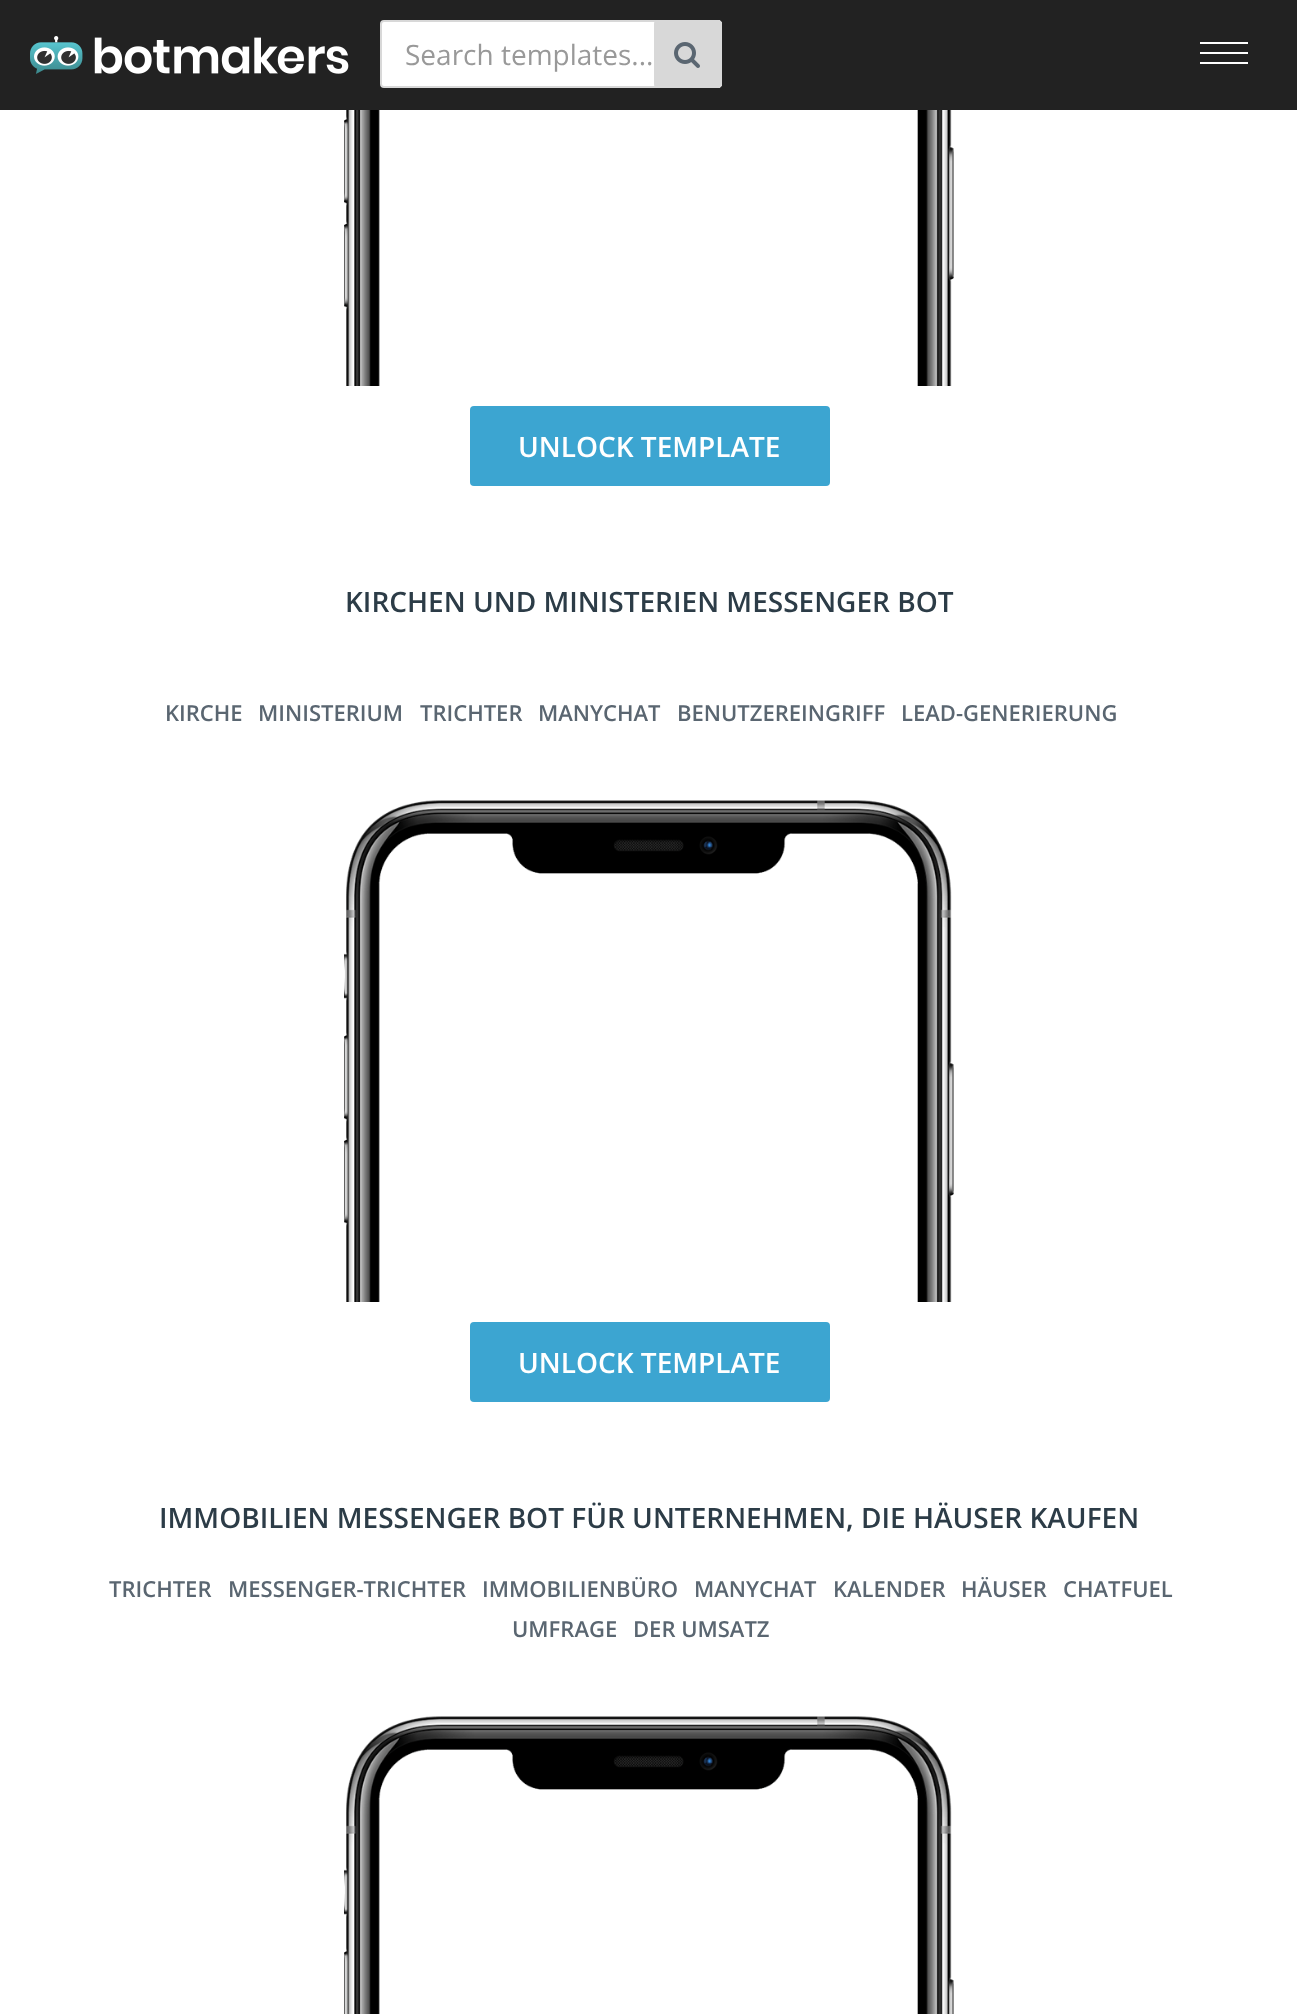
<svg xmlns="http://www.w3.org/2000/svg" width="1297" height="2014">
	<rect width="100%" height="100%" fill="#FFFFFF" />
	<rect x="0" y="0" width="1297" height="110" fill="#222222" />
	<image x="30" y="36" width="53" height="38" href="assets/img1.png" />
	<image x="94" y="37" width="255" height="37" href="assets/img2.png" />
	<rect x="381" y="21" width="296" height="66" rx="3" fill="#FFFFFF" stroke="#D8D8D8" stroke-width="2" />
	<text x="405" y="65" font-family="Open Sans" font-size="28" fill="#999999">Search templates...</text>
	<rect x="654" y="20" width="68" height="68" rx="4" fill="#D8D8D8" />
	<rect x="718" y="20" width="2" height="1" fill="#D8D8D8" />
	<rect x="721" y="22" width="1" height="64" fill="#D8D8D8" />
	<rect x="718" y="87" width="2" height="1" fill="#D8D8D8" />
	<image x="674" y="42" width="26" height="26" href="assets/img3.png" />
	<rect x="1200" y="42" width="48" height="2" fill="#FFFFFF" />
	<rect x="1200" y="52" width="48" height="2" fill="#FFFFFF" />
	<rect x="1200" y="62" width="48" height="2" fill="#FFFFFF" />
	<image x="344" y="110" width="610" height="276" href="assets/img4.png" />
	<rect x="470" y="406" width="360" height="80" rx="4" fill="#3CA5D1" />
	<text x="518" y="457" font-family="Open Sans" font-size="28" font-weight="600" fill="#FFFFFF">UNLOCK TEMPLATE</text>
	<text x="345" y="612" font-family="Open Sans" font-size="28" font-weight="600" fill="#2C3C47">KIRCHEN UND MINISTERIEN MESSENGER BOT</text>
	<g font-family="Open Sans" font-size="22" font-weight="600" fill="#5A6671">
		<text x="165" y="721">KIRCHE</text>
		<text x="258" y="721">MINISTERIUM</text>
		<text x="420" y="721">TRICHTER</text>
		<text x="538" y="721">MANYCHAT</text>
		<text x="677" y="721">BENUTZEREINGRIFF</text>
		<text x="901" y="721">LEAD-GENERIERUNG</text>
	</g>
	<rect x="470" y="1322" width="360" height="80" rx="4" fill="#3CA5D1" />
	<text x="518" y="1373" font-family="Open Sans" font-size="28" font-weight="600" fill="#FFFFFF">UNLOCK TEMPLATE</text>
	<image x="344" y="800" width="610" height="502" href="assets/img5.png" />
	<text x="159" y="1528" font-family="Open Sans" font-size="28" font-weight="600" fill="#2C3C47">IMMOBILIEN MESSENGER BOT FÜR UNTERNEHMEN, DIE HÄUSER KAUFEN</text>
	<g font-family="Open Sans" font-size="22" font-weight="600" fill="#5A6671">
		<text x="109" y="1597">TRICHTER</text>
		<text x="228" y="1597">MESSENGER-TRICHTER</text>
		<text x="482" y="1597">IMMOBILIENBÜRO</text>
		<text x="694" y="1597">MANYCHAT</text>
		<text x="833" y="1597">KALENDER</text>
		<text x="961" y="1597">HÄUSER</text>
		<text x="1063" y="1597">CHATFUEL</text>
		<text x="512" y="1637">UMFRAGE</text>
		<text x="633" y="1637">DER UMSATZ</text>
	</g>
	<image x="344" y="1716" width="610" height="298" href="assets/img6.png" />
</svg>
